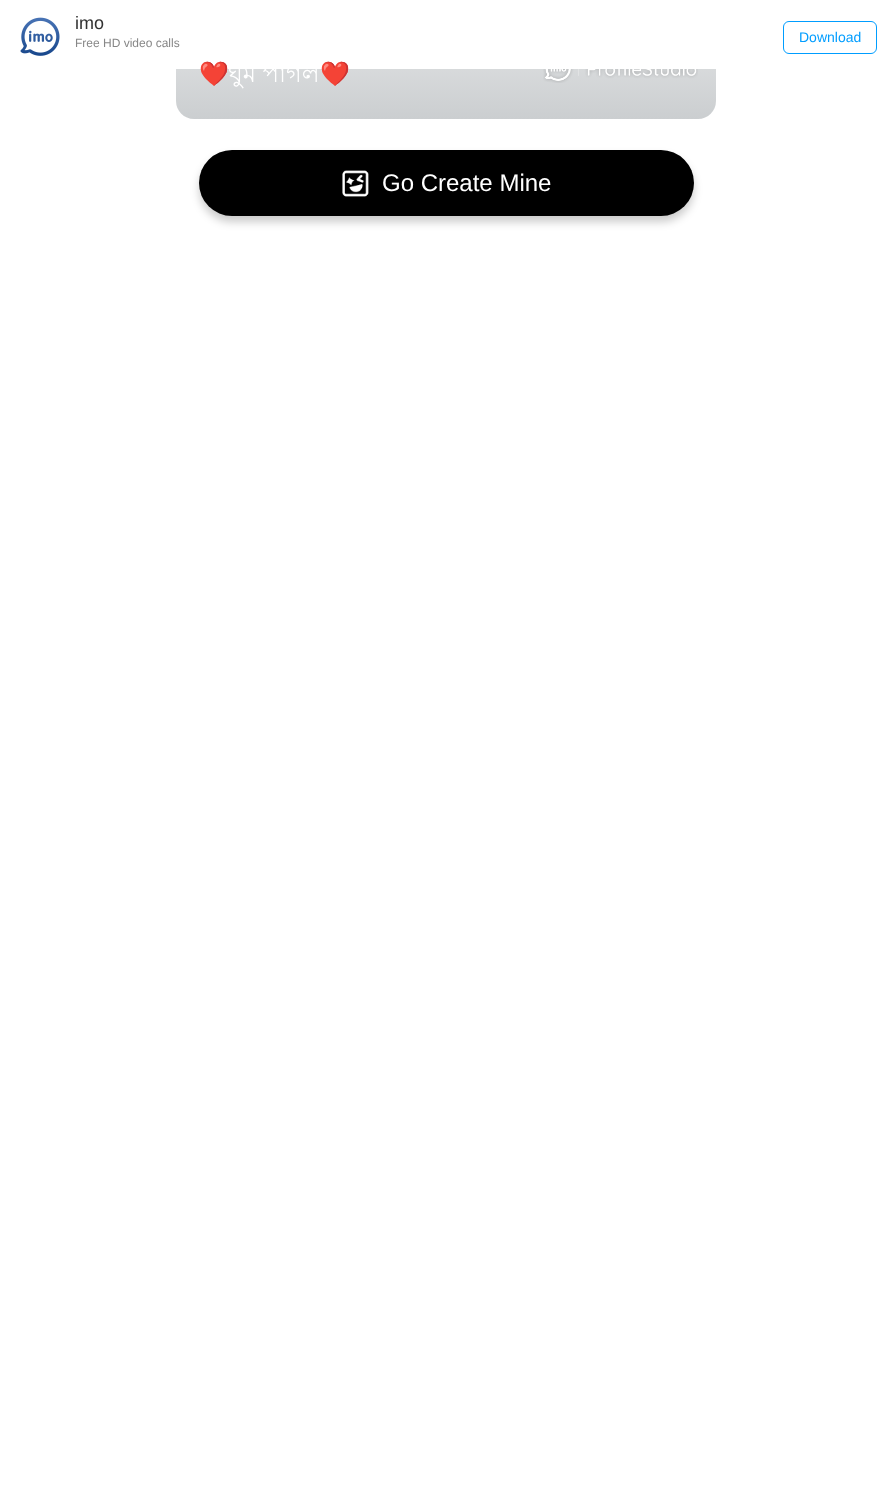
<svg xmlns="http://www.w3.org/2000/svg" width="892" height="1503">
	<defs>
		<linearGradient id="g1" gradientUnits="userSpaceOnUse" x1="446" y1="-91" x2="446" y2="119"><stop offset="0" stop-color="#FFFFFF" /><stop offset="1" stop-color="#CBCED0" /></linearGradient>
		<clipPath id="clip1"><rect x="199" y="58" width="341" height="31" /></clipPath>
	</defs>
	<rect width="100%" height="100%" fill="#FFFFFF" />
	<path d="M176 0H716V101C716 111 708 119 698 119H194C184 119 176 111 176 101Z" fill="url(#g1)" />
	<rect x="176" y="0" width="540" height="69" fill="#FFFFFF" />
	<image x="20" y="17" width="40" height="39" href="assets/img1.png" />
	<text x="75" y="29" font-family="Liberation Sans" font-size="18" fill="#333333">imo</text>
	<text x="75" y="47" font-family="Liberation Sans" font-size="12" fill="#878787">Free HD video calls</text>
	<rect x="783.5" y="21.5" width="93" height="32" rx="5.5" fill="none" stroke="#009DFF" />
	<text x="799" y="42" font-family="Liberation Sans" font-size="14" fill="#009DFF">Download</text>
	<g clip-path="url(#clip1)">
		<text x="199" y="82" font-family="Noto Color Emoji" font-size="24" fill="#FFFFFF">❤️</text>
	</g>
	<text x="228" y="82" font-family="Lohit Bengali" font-size="24" fill="#FFFFFF">ঘুম পাগল</text>
	<text x="320" y="82" font-family="Noto Color Emoji" font-size="24" fill="#FFFFFF">❤️</text>
	<image x="543" y="69" width="155" height="14" href="assets/img2.png" />
	<rect x="199" y="156" width="495" height="66" rx="33" fill="#000000" fill-opacity="0.2" filter="blur(4px)" />
	<rect x="199" y="150" width="495" height="66" rx="33" fill="#000000" />
	<image x="342" y="170" width="27" height="27" href="assets/img3.png" />
	<text x="382" y="191" font-family="Liberation Sans" font-size="24" fill="#FFFFFF">Go Create Mine</text>
</svg>
